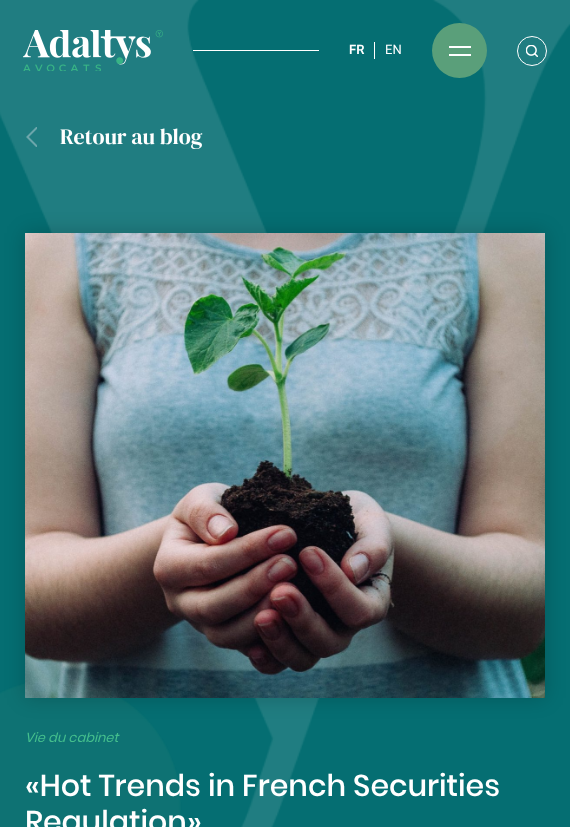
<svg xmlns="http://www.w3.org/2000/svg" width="570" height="827">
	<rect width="100%" height="100%" fill="#056E72" />
	<image x="0" y="0" width="570" height="827" href="assets/img3.png" />
	<image x="23" y="30" width="140" height="41" href="assets/img1.png" />
	<rect x="193" y="50" width="126" height="1" fill="#FFFFFF" />
	<text x="349" y="54" font-family="Roboto" font-size="13" font-weight="600" fill="#FFFFFF">FR</text>
	<rect x="374" y="42" width="1" height="17" fill="#FFFFFF" />
	<text x="385" y="54" font-family="Roboto" font-size="13" fill="#FFFFFF">EN</text>
	<circle cx="459.5" cy="50.5" r="27.5" fill="#5A9F7A" />
	<rect x="449" y="46" width="22" height="2" fill="#FFFFFF" />
	<rect x="449" y="54" width="22" height="2" fill="#FFFFFF" />
	<circle cx="532" cy="51" r="14.5" fill="none" stroke="#FFFFFF" />
	<image x="526" y="45" width="12" height="12" href="assets/img2.png" />
	<image x="26" y="127" width="11" height="20" href="assets/img4.png" />
	<text x="60" y="144" font-family="DM Serif Display" font-size="22" fill="#FFFFFF">Retour au blog</text>
	<rect x="25" y="233" width="520" height="465" fill="#000000" fill-opacity="0.2" filter="blur(10px)" />
	<image x="25" y="233" width="520" height="465" href="assets/img5.png" />
	<text x="25" y="742" font-family="Poppins" font-size="13" font-style="italic" fill="#45BF8D">Vie du cabinet</text>
	<g font-family="Poppins" font-size="30" font-weight="500" fill="#FFFFFF">
		<text x="25" y="796">«Hot Trends in French Securities</text>
		<text x="25" y="832">Regulation»</text>
	</g>
</svg>
